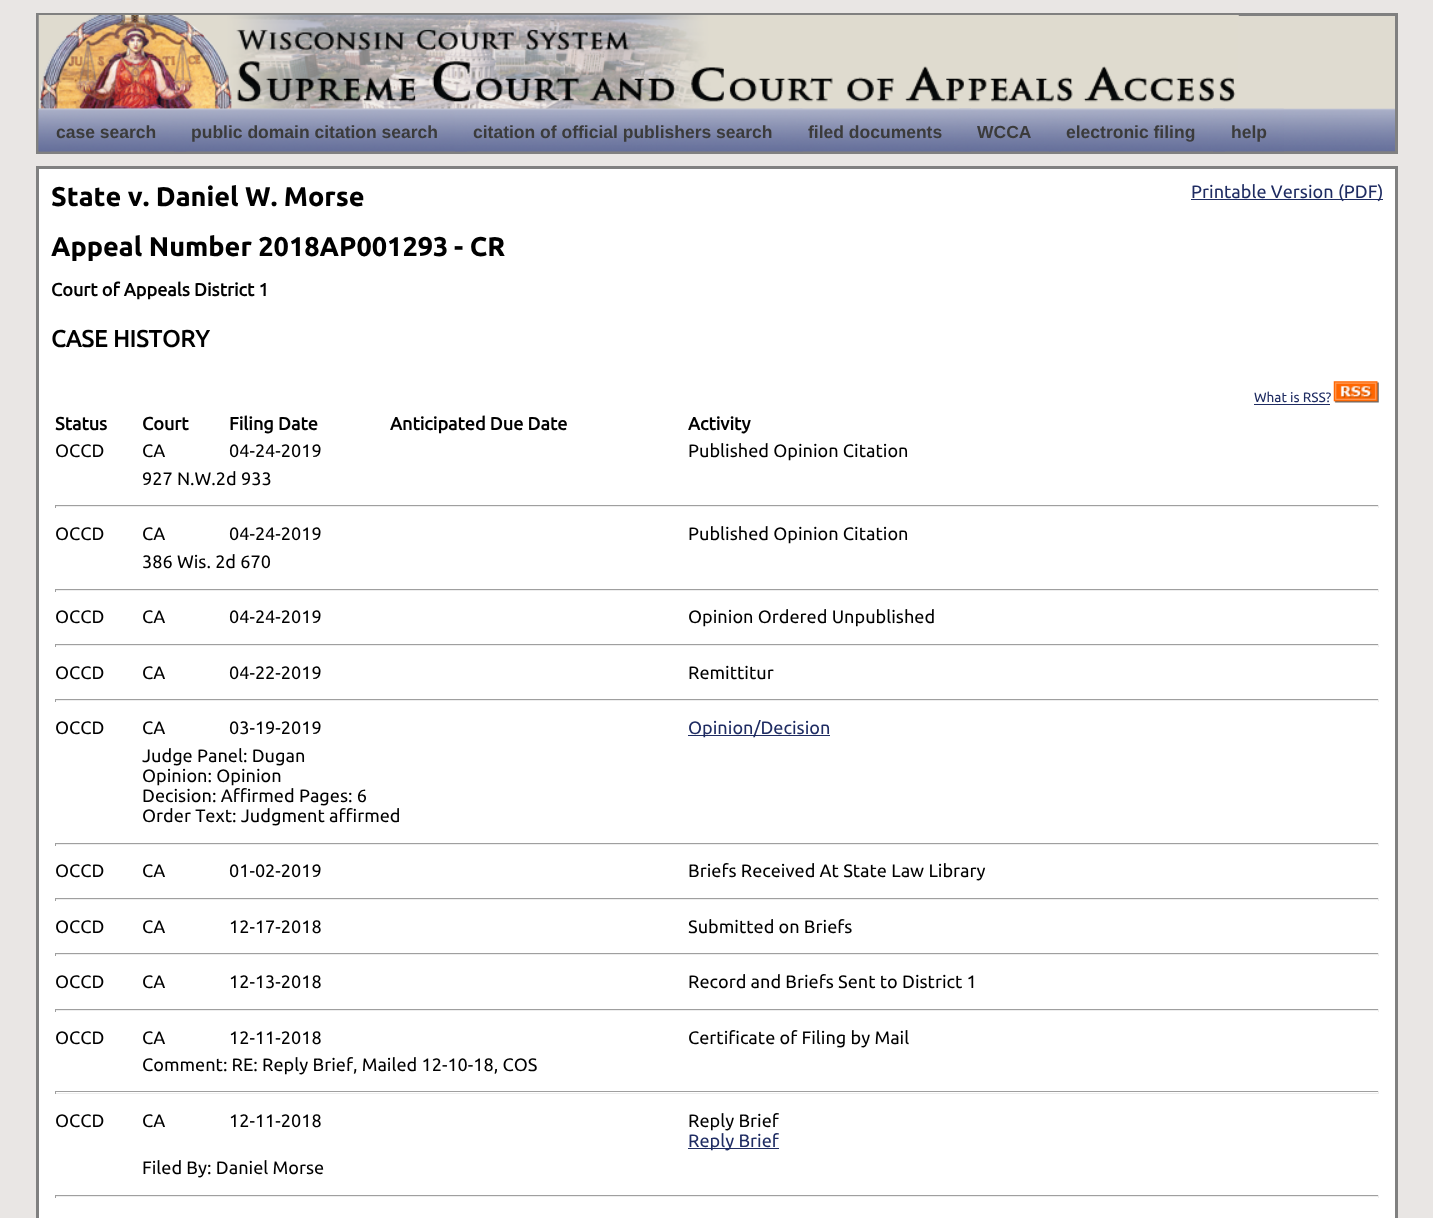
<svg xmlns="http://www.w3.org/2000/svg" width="1433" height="1218">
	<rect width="100%" height="100%" fill="#E9E6E4" />
	<rect x="39" y="16" width="1356" height="93" fill="#DFDBD0" />
	<rect x="37.5" y="14.5" width="1359" height="138" fill="none" stroke="#808080" stroke-width="3" />
	<image x="38" y="15" width="1201" height="94" href="assets/img1.png" />
	<image x="38" y="108" width="1357" height="44" href="assets/img2.png" />
	<image x="38" y="108" width="13" height="44" href="assets/img3.png" />
	<image x="38" y="108" width="136" height="44" href="assets/img4.png" />
	<text x="56" y="138" font-family="Liberation Sans" font-size="17.5" font-weight="700" fill="#3B3B3B">case search</text>
	<image x="174" y="108" width="13" height="44" href="assets/img5.png" />
	<image x="174" y="108" width="281" height="44" href="assets/img6.png" />
	<text x="191" y="138" font-family="Liberation Sans" font-size="17.5" font-weight="700" fill="#3B3B3B">public domain citation search</text>
	<image x="455" y="108" width="12" height="44" href="assets/img7.png" />
	<image x="455" y="108" width="335" height="44" href="assets/img8.png" />
	<text x="473" y="138" font-family="Liberation Sans" font-size="17.5" font-weight="700" fill="#3B3B3B">citation of official publishers search</text>
	<image x="790" y="108" width="13" height="44" href="assets/img9.png" />
	<image x="790" y="108" width="169" height="44" href="assets/img10.png" />
	<text x="808" y="138" font-family="Liberation Sans" font-size="17.5" font-weight="700" fill="#3B3B3B">filed documents</text>
	<image x="959" y="108" width="12" height="44" href="assets/img11.png" />
	<image x="959" y="108" width="90" height="44" href="assets/img12.png" />
	<text x="977" y="138" font-family="Liberation Sans" font-size="17.5" font-weight="700" fill="#3B3B3B">WCCA</text>
	<image x="1049" y="108" width="12" height="44" href="assets/img13.png" />
	<image x="1049" y="108" width="164" height="44" href="assets/img14.png" />
	<text x="1066" y="138" font-family="Liberation Sans" font-size="17.5" font-weight="700" fill="#3B3B3B">electronic filing</text>
	<image x="1213" y="108" width="12" height="44" href="assets/img15.png" />
	<image x="1213" y="108" width="71" height="44" href="assets/img16.png" />
	<text x="1231" y="138" font-family="Liberation Sans" font-size="17.5" font-weight="700" fill="#3B3B3B">help</text>
	<rect x="37.5" y="167.5" width="1359" height="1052" fill="#FFFFFF" stroke="#808080" stroke-width="3" />
	<text x="51" y="206" font-family="Ubuntu" font-size="27" font-weight="700" fill="#000000">State v. Daniel W. Morse</text>
	<rect x="1191" y="199" width="192" height="1" fill="#1F2C62" />
	<text x="1191" y="198" font-family="Ubuntu" font-size="18" fill="#1F2C62">Printable Version (PDF)</text>
	<g font-family="Ubuntu" font-size="27" font-weight="700" fill="#000000">
		<text x="51" y="256">Appeal Number 2018AP001293</text>
		<text x="454" y="256">- CR</text>
	</g>
	<text x="51" y="296" font-family="'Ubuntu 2'" font-size="18" font-weight="700" fill="#000000">Court of Appeals District 1</text>
	<text x="51" y="347" font-family="'Ubuntu 2'" font-size="23.5" font-weight="700" fill="#000000">CASE HISTORY</text>
	<text x="1254" y="402" font-family="Ubuntu" font-size="13.5" fill="#1F2C62">What is RSS?</text>
	<rect x="1254" y="404" width="76" height="1" fill="#1F2C62" />
	<image x="1333" y="381" width="46" height="22" href="assets/img17.png" />
	<g font-family="'Ubuntu 2'" font-size="18" font-weight="700" fill="#000000">
		<text x="55" y="430">Status</text>
		<text x="142" y="430">Court</text>
		<text x="229" y="430">Filing Date</text>
		<text x="390" y="430">Anticipated Due Date</text>
		<text x="688" y="430">Activity</text>
	</g>
	<g font-family="Ubuntu" font-size="18" fill="#000000">
		<text x="55" y="457">OCCD</text>
		<text x="142" y="457">CA</text>
		<text x="229" y="457">04-24-2019</text>
		<text x="688" y="457">Published Opinion Citation</text>
		<text x="142" y="485">927 N.W.2d 933</text>
	</g>
	<rect x="55" y="505" width="1324" height="1" fill="#9F9F9F" />
	<rect x="1378" y="505" width="1" height="3" fill="#EEEEEE" />
	<rect x="55" y="506" width="1324" height="1" fill="#EEEEEE" />
	<rect x="55" y="505" width="1" height="3" fill="#9F9F9F" />
	<g font-family="Ubuntu" font-size="18" fill="#000000">
		<text x="55" y="540">OCCD</text>
		<text x="142" y="540">CA</text>
		<text x="229" y="540">04-24-2019</text>
		<text x="688" y="540">Published Opinion Citation</text>
		<text x="142" y="568">386 Wis. 2d 670</text>
	</g>
	<rect x="55" y="589" width="1324" height="1" fill="#9F9F9F" />
	<rect x="1378" y="589" width="1" height="3" fill="#EEEEEE" />
	<rect x="55" y="590" width="1324" height="1" fill="#EEEEEE" />
	<rect x="55" y="589" width="1" height="3" fill="#9F9F9F" />
	<g font-family="Ubuntu" font-size="18" fill="#000000">
		<text x="55" y="623">OCCD</text>
		<text x="142" y="623">CA</text>
		<text x="229" y="623">04-24-2019</text>
		<text x="688" y="623">Opinion Ordered Unpublished</text>
	</g>
	<rect x="55" y="644" width="1324" height="1" fill="#9F9F9F" />
	<rect x="1378" y="644" width="1" height="3" fill="#EEEEEE" />
	<rect x="55" y="645" width="1324" height="1" fill="#EEEEEE" />
	<rect x="55" y="644" width="1" height="3" fill="#9F9F9F" />
	<g font-family="Ubuntu" font-size="18" fill="#000000">
		<text x="55" y="679">OCCD</text>
		<text x="142" y="679">CA</text>
		<text x="229" y="679">04-22-2019</text>
		<text x="688" y="679">Remittitur</text>
	</g>
	<rect x="55" y="699" width="1324" height="1" fill="#9F9F9F" />
	<rect x="1378" y="699" width="1" height="3" fill="#EEEEEE" />
	<rect x="55" y="700" width="1324" height="1" fill="#EEEEEE" />
	<rect x="55" y="699" width="1" height="3" fill="#9F9F9F" />
	<g font-family="Ubuntu" font-size="18" fill="#000000">
		<text x="55" y="734">OCCD</text>
		<text x="142" y="734">CA</text>
		<text x="229" y="734">03-19-2019</text>
	</g>
	<rect x="688" y="735" width="142" height="1" fill="#1F2C62" />
	<text x="688" y="734" font-family="Ubuntu" font-size="18" fill="#1F2C62">Opinion/Decision</text>
	<g font-family="Ubuntu" font-size="18" fill="#000000">
		<text x="142" y="762">Judge Panel: Dugan</text>
		<text x="142" y="782">Opinion: Opinion</text>
		<text x="142" y="802">Decision: Affirmed Pages: 6</text>
		<text x="142" y="822">Order Text: Judgment affirmed</text>
	</g>
	<rect x="55" y="843" width="1324" height="1" fill="#9F9F9F" />
	<rect x="1378" y="843" width="1" height="3" fill="#EEEEEE" />
	<rect x="55" y="844" width="1324" height="1" fill="#EEEEEE" />
	<rect x="55" y="843" width="1" height="3" fill="#9F9F9F" />
	<g font-family="Ubuntu" font-size="18" fill="#000000">
		<text x="55" y="877">OCCD</text>
		<text x="142" y="877">CA</text>
		<text x="229" y="877">01-02-2019</text>
		<text x="688" y="877">Briefs Received At State Law Library</text>
	</g>
	<rect x="55" y="898" width="1324" height="1" fill="#9F9F9F" />
	<rect x="1378" y="898" width="1" height="3" fill="#EEEEEE" />
	<rect x="55" y="899" width="1324" height="1" fill="#EEEEEE" />
	<rect x="55" y="898" width="1" height="3" fill="#9F9F9F" />
	<g font-family="Ubuntu" font-size="18" fill="#000000">
		<text x="55" y="933">OCCD</text>
		<text x="142" y="933">CA</text>
		<text x="229" y="933">12-17-2018</text>
		<text x="688" y="933">Submitted on Briefs</text>
	</g>
	<rect x="55" y="953" width="1324" height="1" fill="#9F9F9F" />
	<rect x="1378" y="953" width="1" height="3" fill="#EEEEEE" />
	<rect x="55" y="954" width="1324" height="1" fill="#EEEEEE" />
	<rect x="55" y="953" width="1" height="3" fill="#9F9F9F" />
	<g font-family="Ubuntu" font-size="18" fill="#000000">
		<text x="55" y="988">OCCD</text>
		<text x="142" y="988">CA</text>
		<text x="229" y="988">12-13-2018</text>
		<text x="688" y="988">Record and Briefs Sent to District 1</text>
	</g>
	<rect x="55" y="1009" width="1324" height="1" fill="#9F9F9F" />
	<rect x="1378" y="1009" width="1" height="3" fill="#EEEEEE" />
	<rect x="55" y="1010" width="1324" height="1" fill="#EEEEEE" />
	<rect x="55" y="1009" width="1" height="3" fill="#9F9F9F" />
	<g font-family="Ubuntu" font-size="18" fill="#000000">
		<text x="55" y="1044">OCCD</text>
		<text x="142" y="1044">CA</text>
		<text x="229" y="1044">12-11-2018</text>
		<text x="688" y="1044">Certificate of Filing by Mail</text>
		<text x="142" y="1071">Comment: RE: Reply Brief, Mailed 12-10-18, COS</text>
	</g>
	<rect x="55" y="1091" width="1324" height="1" fill="#9F9F9F" />
	<rect x="1378" y="1091" width="1" height="3" fill="#EEEEEE" />
	<rect x="55" y="1093" width="1324" height="1" fill="#EEEEEE" />
	<rect x="55" y="1091" width="1" height="3" fill="#9F9F9F" />
	<g font-family="Ubuntu" font-size="18" fill="#000000">
		<text x="55" y="1127">OCCD</text>
		<text x="142" y="1127">CA</text>
		<text x="229" y="1127">12-11-2018</text>
		<text x="688" y="1127">Reply Brief</text>
	</g>
	<rect x="688" y="1148" width="91" height="1" fill="#1F2C62" />
	<text x="688" y="1147" font-family="Ubuntu" font-size="18" fill="#1F2C62">Reply Brief</text>
	<text x="142" y="1174" font-family="Ubuntu" font-size="18" fill="#000000">Filed By: Daniel Morse</text>
	<rect x="55" y="1195" width="1324" height="1" fill="#9F9F9F" />
	<rect x="1378" y="1195" width="1" height="3" fill="#EEEEEE" />
	<rect x="55" y="1196" width="1324" height="1" fill="#EEEEEE" />
	<rect x="55" y="1195" width="1" height="3" fill="#9F9F9F" />
</svg>
